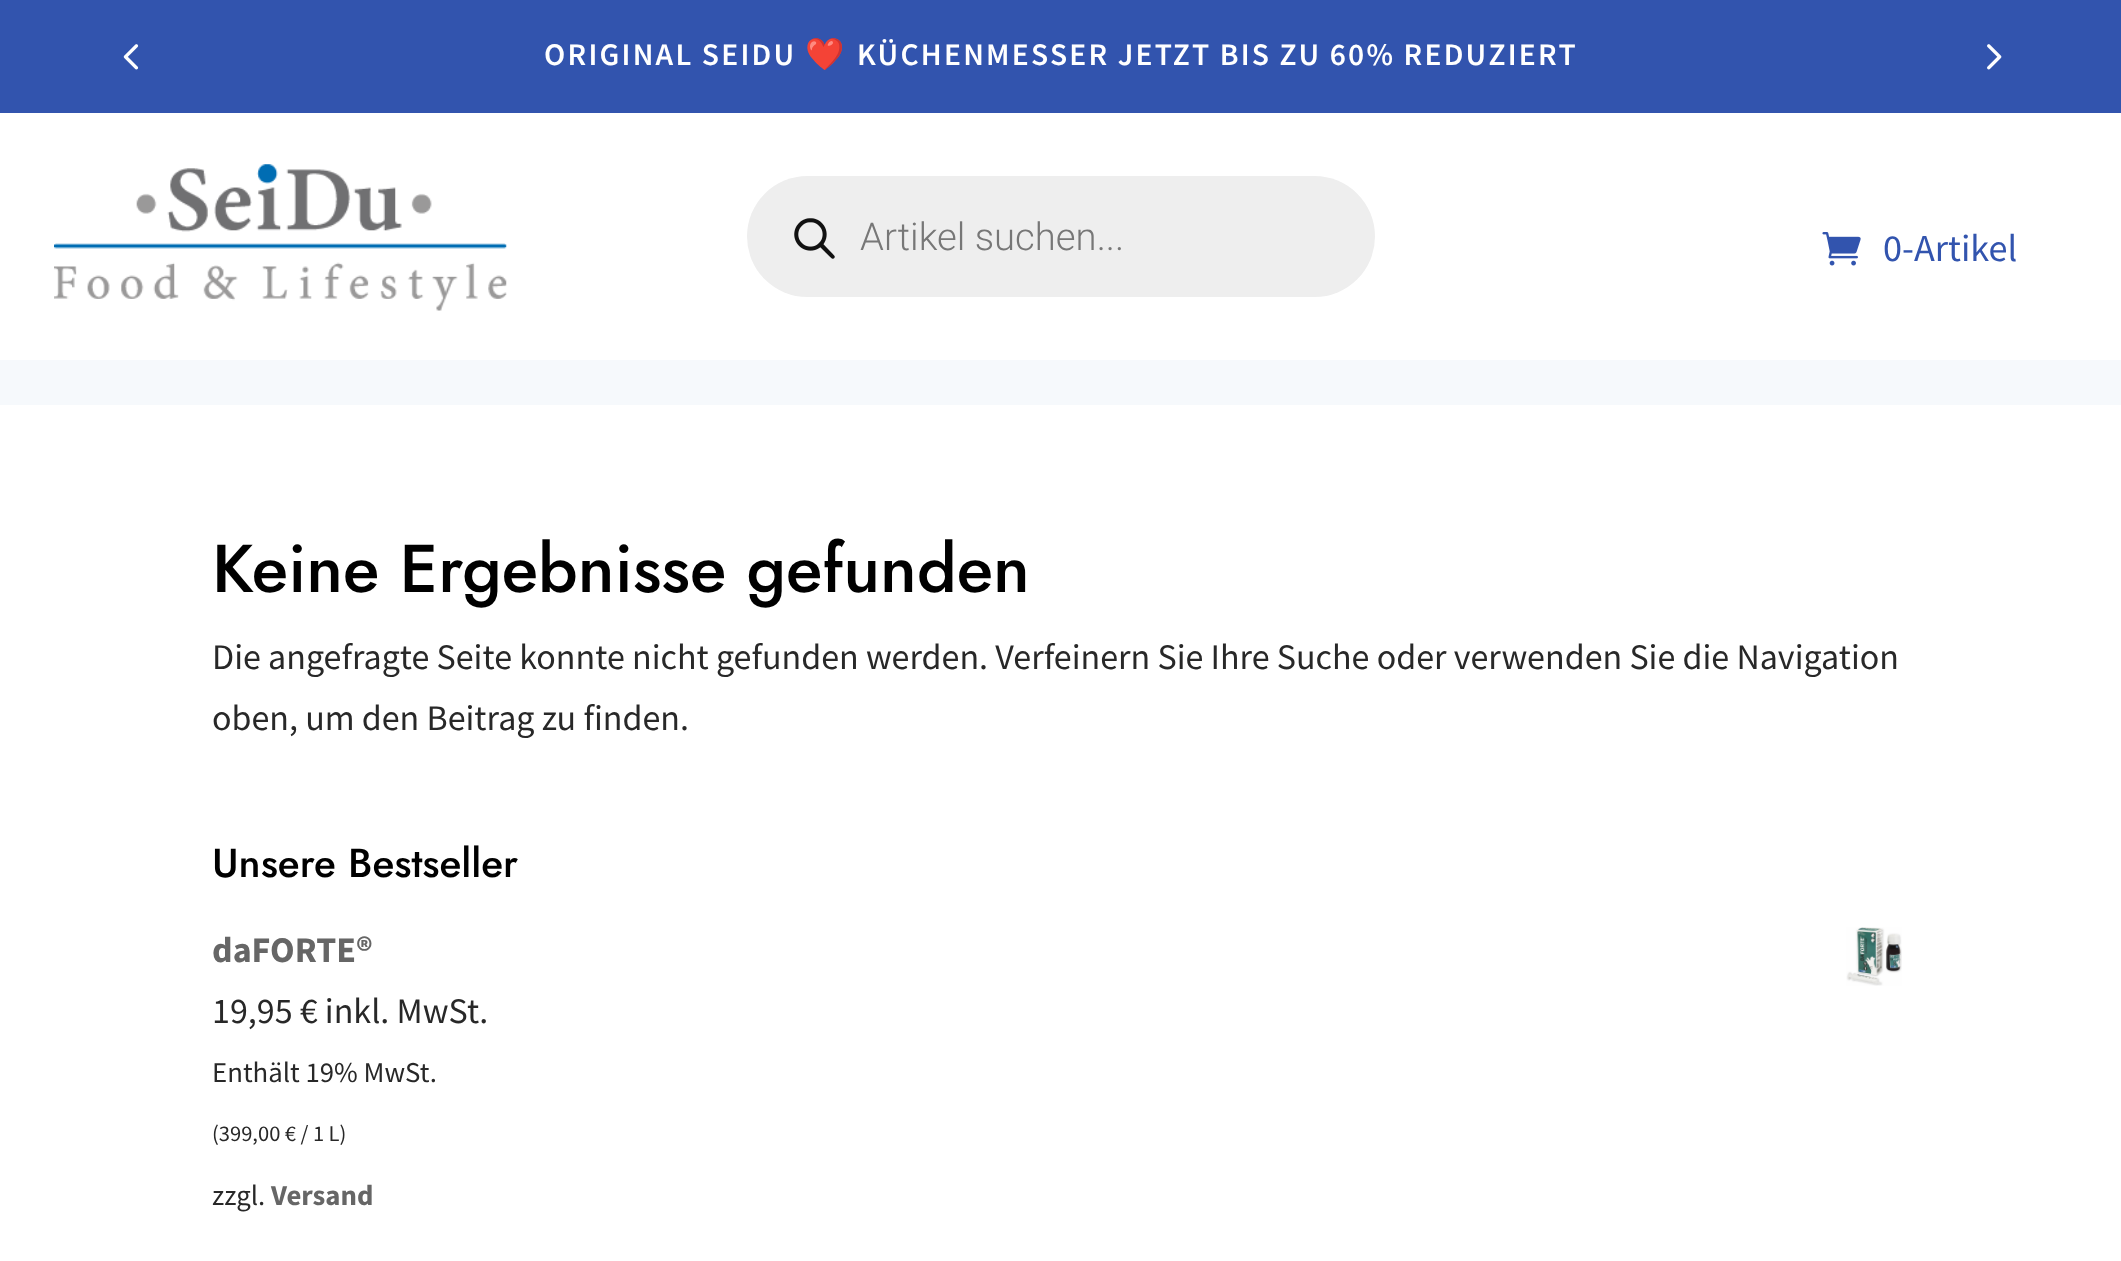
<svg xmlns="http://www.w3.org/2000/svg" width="2121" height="1261">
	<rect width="100%" height="100%" fill="#FFFFFF" />
	<rect x="0" y="0" width="2121" height="113" fill="#3254AE" />
	<text x="544" y="65" word-spacing="-0.25" font-family="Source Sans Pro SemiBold" font-size="31.5" font-weight="600" letter-spacing="2.25" fill="#FFFFFF">ORIGINAL SEIDU</text>
	<text x="805" y="65" font-family="Noto Color Emoji" font-size="31.5" font-weight="700" letter-spacing="2.25" fill="#FFFFFF">❤️</text>
	<text x="857" y="65" word-spacing="-0.25" font-family="Source Sans Pro SemiBold" font-size="31.5" font-weight="600" letter-spacing="2.25" fill="#FFFFFF">KÜCHENMESSER JETZT BIS ZU 60% REDUZIERT</text>
	<image x="123" y="44" width="16" height="26" href="assets/img1.png" />
	<image x="1987" y="44" width="15" height="26" href="assets/img2.png" />
	<image x="54" y="164" width="453" height="147" href="assets/img3.png" />
	<rect x="747" y="176" width="628" height="121" rx="60.5" fill="#EEEEEE" />
	<image x="794" y="218" width="41" height="41" href="assets/img4.png" />
	<text x="860" y="250" font-family="Roboto" font-size="38.25" font-weight="300" fill="#777777">Artikel suchen...</text>
	<image x="1822" y="232" width="39" height="34" href="assets/img5.png" />
	<text x="1883" y="261" font-family="Source Sans Pro" font-size="38.25" fill="#3254AE">0-Artikel</text>
	<rect x="0" y="360" width="2121" height="45" fill="#F6F9FC" />
	<text x="212" y="592" font-family="Jost" font-size="67.5" font-weight="500" fill="#000000">Keine Ergebnisse gefunden</text>
	<g font-family="Source Sans Pro" font-size="36" fill="#282828">
		<text x="212" y="669">Die angefragte Seite konnte nicht gefunden werden. Verfeinern Sie Ihre Suche oder verwenden Sie die Navigation</text>
		<text x="212" y="730">oben, um den Beitrag zu finden.</text>
	</g>
	<text x="212" y="877" font-family="Jost" font-size="40.5" font-weight="500" fill="#000000">Unsere Bestseller</text>
	<text x="212" y="962" font-family="Source Sans Pro" font-size="36" font-weight="700" fill="#666666">daFORTE®</text>
	<image x="1846" y="927" width="56" height="59" href="assets/img6.png" />
	<text x="212" y="1023" font-family="Source Sans Pro" font-size="36" fill="#282828">19,95 € inkl. MwSt.</text>
	<text x="212" y="1082" font-family="Source Sans Pro" font-size="28.75" fill="#282828">Enthält 19% MwSt.</text>
	<text x="212" y="1141" font-family="Source Sans Pro" font-size="22.5" fill="#282828">(399,00 € / 1 L)</text>
	<text x="212" y="1205" font-family="Source Sans Pro" font-size="28.75" fill="#282828">zzgl.</text>
	<text x="271" y="1205" font-family="Source Sans Pro" font-size="28.75" font-weight="700" fill="#666666">Versand</text>
</svg>
